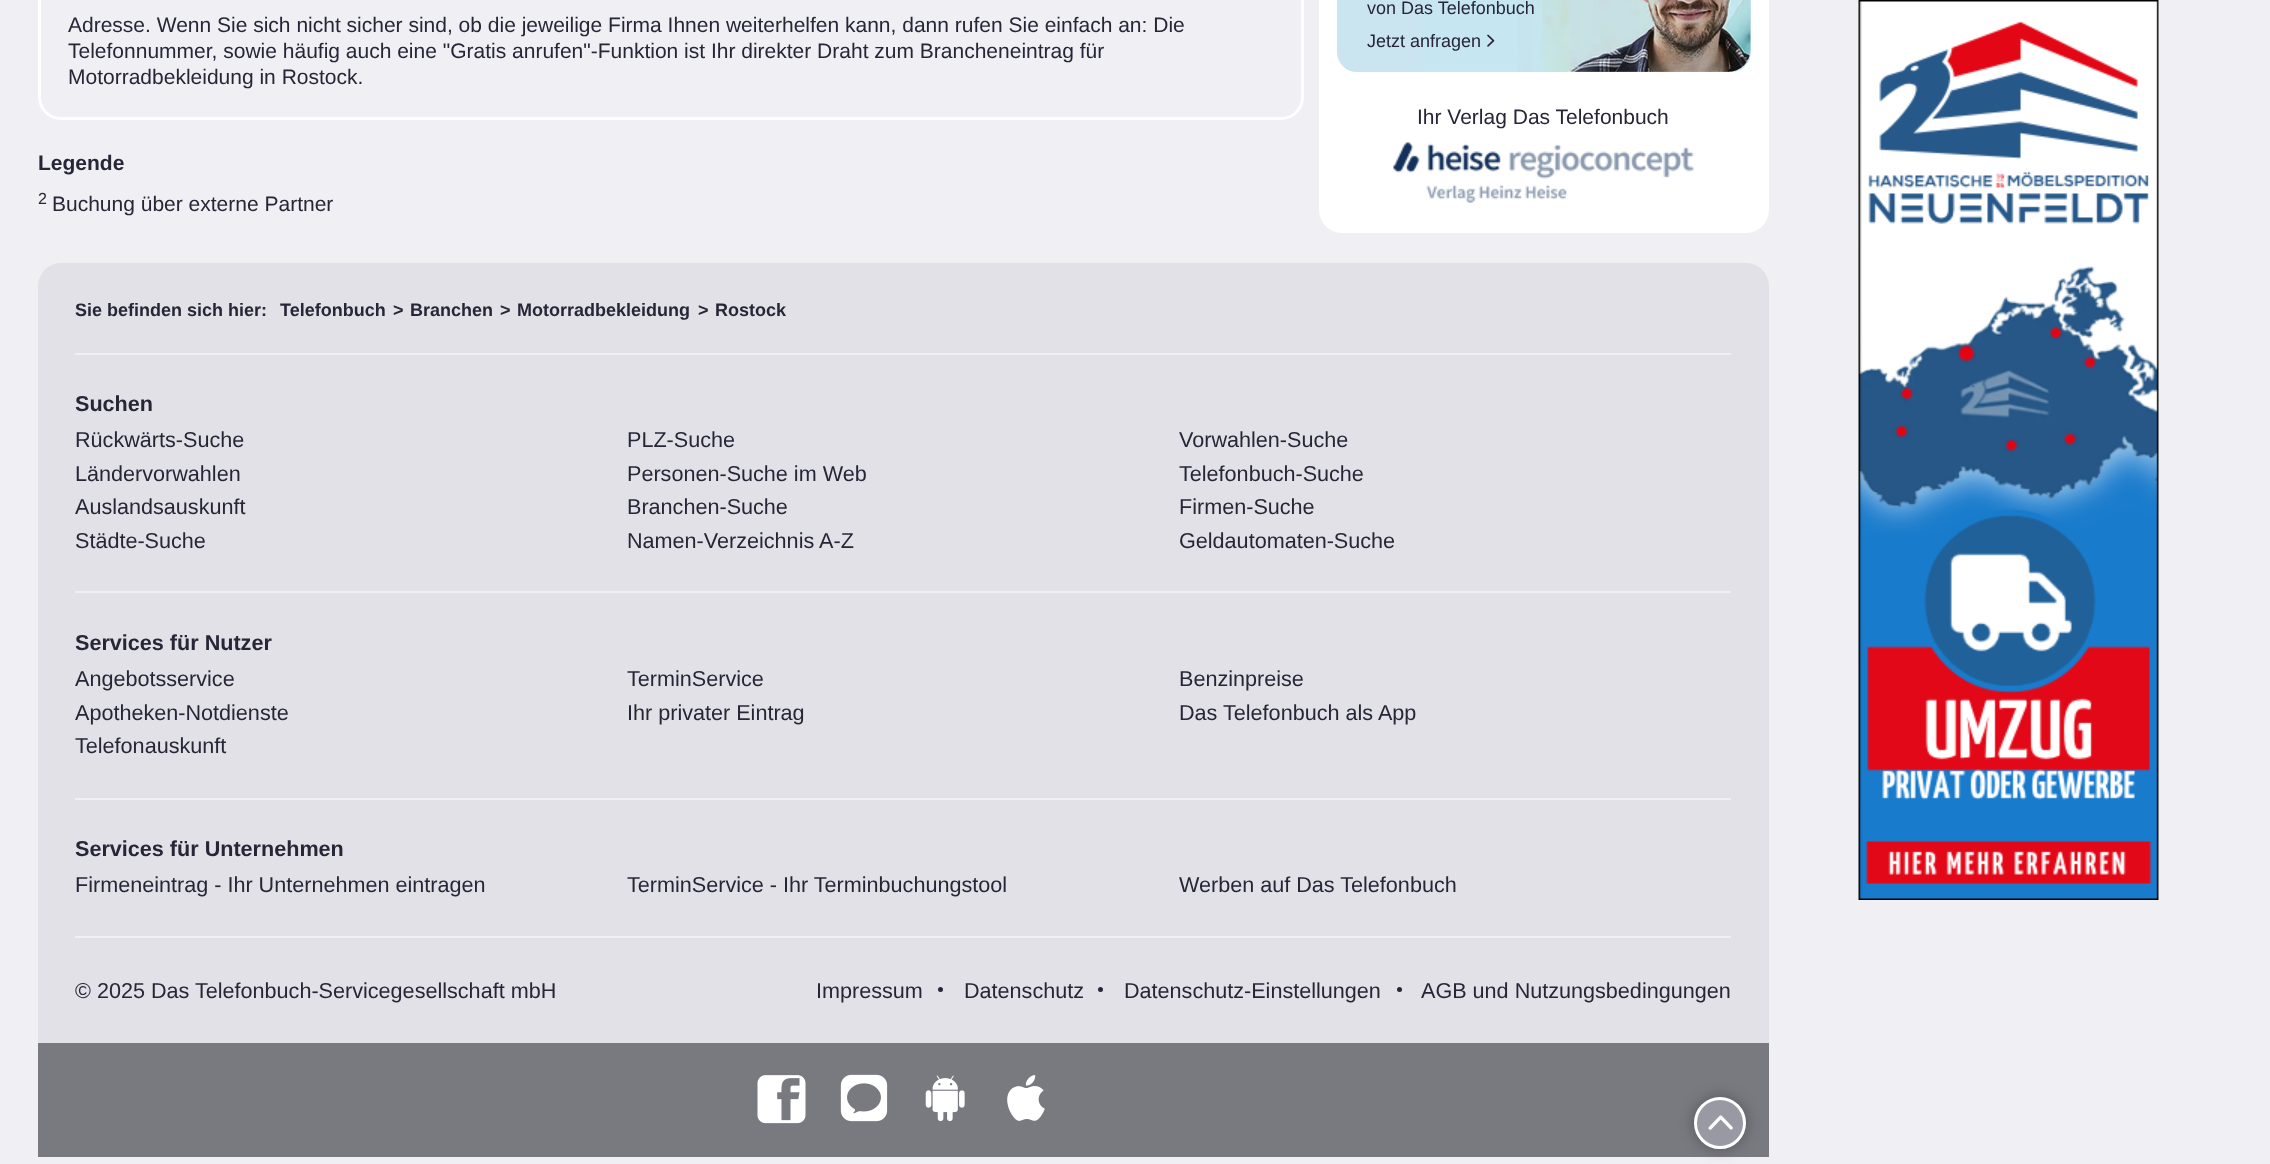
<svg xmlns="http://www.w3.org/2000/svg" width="2270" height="1164">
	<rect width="100%" height="100%" fill="#EFEFF4" />
	<rect x="39.5" y="-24.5" width="1263" height="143" rx="21.5" fill="none" stroke="#FFFFFF" stroke-width="3" />
	<g font-family="Liberation Sans" font-size="21" fill="#262637">
		<text x="68" y="32">Adresse. Wenn Sie sich nicht sicher sind, ob die jeweilige Firma Ihnen weiterhelfen kann, dann rufen Sie einfach an: Die</text>
		<text x="68" y="58">Telefonnummer, sowie häufig auch eine "Gratis anrufen"-Funktion ist Ihr direkter Draht zum Brancheneintrag für</text>
		<text x="68" y="84">Motorradbekleidung in Rostock.</text>
	</g>
	<text x="38" y="170" font-family="Liberation Sans" font-size="21" font-weight="700" fill="#262637">Legende</text>
	<text x="38" y="204" font-family="Liberation Sans" font-size="16" fill="#262637">2</text>
	<text x="52" y="211" font-family="Liberation Sans" font-size="21" fill="#262637">Buchung über externe Partner</text>
	<rect x="1319" y="-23" width="450" height="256" rx="23" fill="#FFFFFF" />
	<rect x="1335.5" y="-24.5" width="417" height="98" rx="21.5" fill="#CBE5F0" stroke="#FFFFFF" stroke-width="3" />
	<image x="1421" y="0" width="330" height="72" href="assets/img2.png" />
	<g font-family="Liberation Sans" font-size="18" fill="#262637">
		<text x="1367" y="14">von Das Telefonbuch</text>
		<text x="1367" y="47">Jetzt anfragen</text>
	</g>
	<image x="1487" y="34" width="8" height="13" href="assets/img1.png" />
	<text x="1417" y="124" font-family="Liberation Sans" font-size="21" fill="#262637">Ihr Verlag Das Telefonbuch</text>
	<image x="1393" y="142" width="301" height="61" href="assets/img3.png" />
	<rect x="38" y="1043" width="1731" height="114" fill="#797980" />
	<rect x="1694" y="1097" width="52" height="52" rx="26" fill="#000000" fill-opacity="0.3" filter="blur(7.5px)" />
	<circle cx="1720" cy="1123" r="24.5" fill="#9999A3" stroke="#FFFFFF" stroke-width="3" />
	<image x="1708" y="1115" width="25" height="15" href="assets/img4.png" />
	<path d="M61 263H1746C1758.5 263 1769 273.5 1769 286V354H38V286C38 273.5 48.5 263 61 263Z" fill="#E1E1E7" />
	<g font-family="Liberation Sans" font-size="18" font-weight="700" fill="#262637">
		<text x="75" y="316">Sie befinden sich hier:</text>
		<text x="280" y="316">Telefonbuch</text>
		<text x="393" y="316">˃</text>
		<text x="410" y="316">Branchen</text>
		<text x="500" y="316">˃</text>
		<text x="517" y="316">Motorradbekleidung</text>
		<text x="698" y="316">˃</text>
		<text x="715" y="316">Rostock</text>
	</g>
	<rect x="38" y="354" width="1731" height="689" fill="#E1E1E7" />
	<rect x="75" y="353" width="1656" height="2" fill="#EFEFF4" />
	<rect x="75" y="591" width="1656" height="2" fill="#EFEFF4" />
	<text x="75" y="411" font-family="Liberation Sans" font-size="21.6" font-weight="700" fill="#262637">Suchen</text>
	<g font-family="Liberation Sans" font-size="21.6" fill="#262637">
		<text x="75" y="447">Rückwärts-Suche</text>
		<text x="627" y="447">PLZ-Suche</text>
		<text x="1179" y="447">Vorwahlen-Suche</text>
		<text x="75" y="481">Ländervorwahlen</text>
		<text x="627" y="481">Personen-Suche im Web</text>
		<text x="1179" y="481">Telefonbuch-Suche</text>
		<text x="75" y="514">Auslandsauskunft</text>
		<text x="627" y="514">Branchen-Suche</text>
		<text x="1179" y="514">Firmen-Suche</text>
		<text x="75" y="548">Städte-Suche</text>
		<text x="627" y="548">Namen-Verzeichnis A-Z</text>
		<text x="1179" y="548">Geldautomaten-Suche</text>
	</g>
	<rect x="75" y="798" width="1656" height="2" fill="#EFEFF4" />
	<text x="75" y="650" font-family="Liberation Sans" font-size="21.6" font-weight="700" fill="#262637">Services für Nutzer</text>
	<g font-family="Liberation Sans" font-size="21.6" fill="#262637">
		<text x="75" y="686">Angebotsservice</text>
		<text x="627" y="686">TerminService</text>
		<text x="1179" y="686">Benzinpreise</text>
		<text x="75" y="720">Apotheken-Notdienste</text>
		<text x="627" y="720">Ihr privater Eintrag</text>
		<text x="1179" y="720">Das Telefonbuch als App</text>
		<text x="75" y="753">Telefonauskunft</text>
	</g>
	<rect x="75" y="936" width="1656" height="2" fill="#EFEFF4" />
	<text x="75" y="856" font-family="Liberation Sans" font-size="21.6" font-weight="700" fill="#262637">Services für Unternehmen</text>
	<g font-family="Liberation Sans" font-size="21.6" fill="#262637">
		<text x="75" y="892">Firmeneintrag - Ihr Unternehmen eintragen</text>
		<text x="627" y="892">TerminService - Ihr Terminbuchungstool</text>
		<text x="1179" y="892">Werben auf Das Telefonbuch</text>
		<text x="75" y="998">© 2025 Das Telefonbuch-Servicegesellschaft mbH</text>
		<text x="816" y="998">Impressum</text>
	</g>
	<circle cx="940.5" cy="989.5" r="2.5" fill="#262637" />
	<text x="964" y="998" font-family="Liberation Sans" font-size="21.6" fill="#262637">Datenschutz</text>
	<circle cx="1100.5" cy="989.5" r="2.5" fill="#262637" />
	<text x="1124" y="998" font-family="Liberation Sans" font-size="21.6" fill="#262637">Datenschutz-Einstellungen</text>
	<circle cx="1399.5" cy="989.5" r="2.5" fill="#262637" />
	<text x="1421" y="998" font-family="Liberation Sans" font-size="21.6" fill="#262637">AGB und Nutzungsbedingungen</text>
	<image x="757" y="1075" width="49" height="49" href="assets/img5.png" />
	<image x="840" y="1074" width="48" height="48" href="assets/img6.png" />
	<image x="925" y="1075" width="40" height="47" href="assets/img7.png" />
	<image x="1007" y="1075" width="38" height="46" href="assets/img8.png" />
	<image x="1858" y="0" width="301" height="900" href="assets/img9.png" />
</svg>
